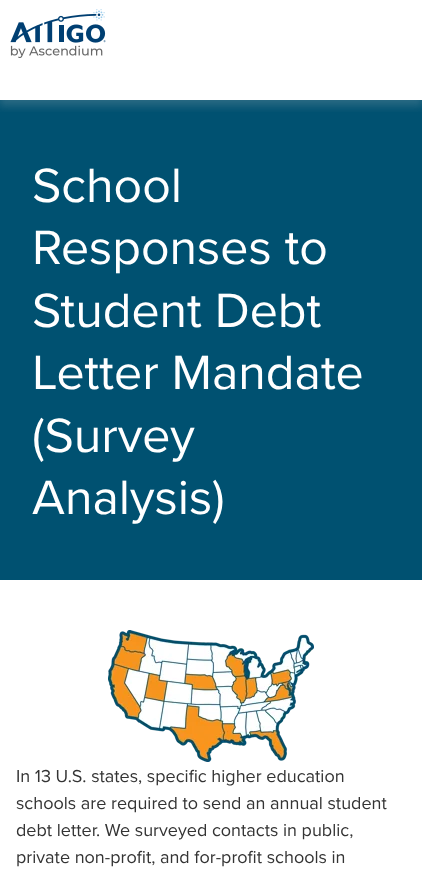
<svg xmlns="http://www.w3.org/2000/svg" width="422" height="884">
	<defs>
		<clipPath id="clip1"><rect x="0" y="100" width="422" height="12" /></clipPath>
	</defs>
	<rect width="100%" height="100%" fill="#FFFFFF" />
	<rect x="0" y="100" width="422" height="480" fill="#005171" />
	<g clip-path="url(#clip1)">
		<rect x="-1" y="4" width="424" height="102" fill="#CCCCCC" fill-opacity="0.2" filter="blur(4.5px)" />
	</g>
	<image x="10" y="9" width="96" height="49" href="assets/img1.png" />
	<g font-family="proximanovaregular" font-size="50" fill="#FFFFFF">
		<text x="32" y="202">School</text>
		<text x="32" y="264">Responses to</text>
		<text x="32" y="327">Student Debt</text>
		<text x="32" y="389">Letter Mandate</text>
		<text x="32" y="452">(Survey</text>
		<text x="32" y="514">Analysis)</text>
	</g>
	<image x="108" y="630" width="206" height="132" href="assets/img2.png" />
	<g font-family="proximanovaregular" font-size="18" fill="#343434">
		<text x="16" y="782">In 13 U.S. states, specific higher education</text>
		<text x="16" y="809">schools are required to send an annual student</text>
		<text x="16" y="836">debt letter. We surveyed contacts in public,</text>
		<text x="16" y="863">private non-profit, and for-profit schools in</text>
	</g>
</svg>
